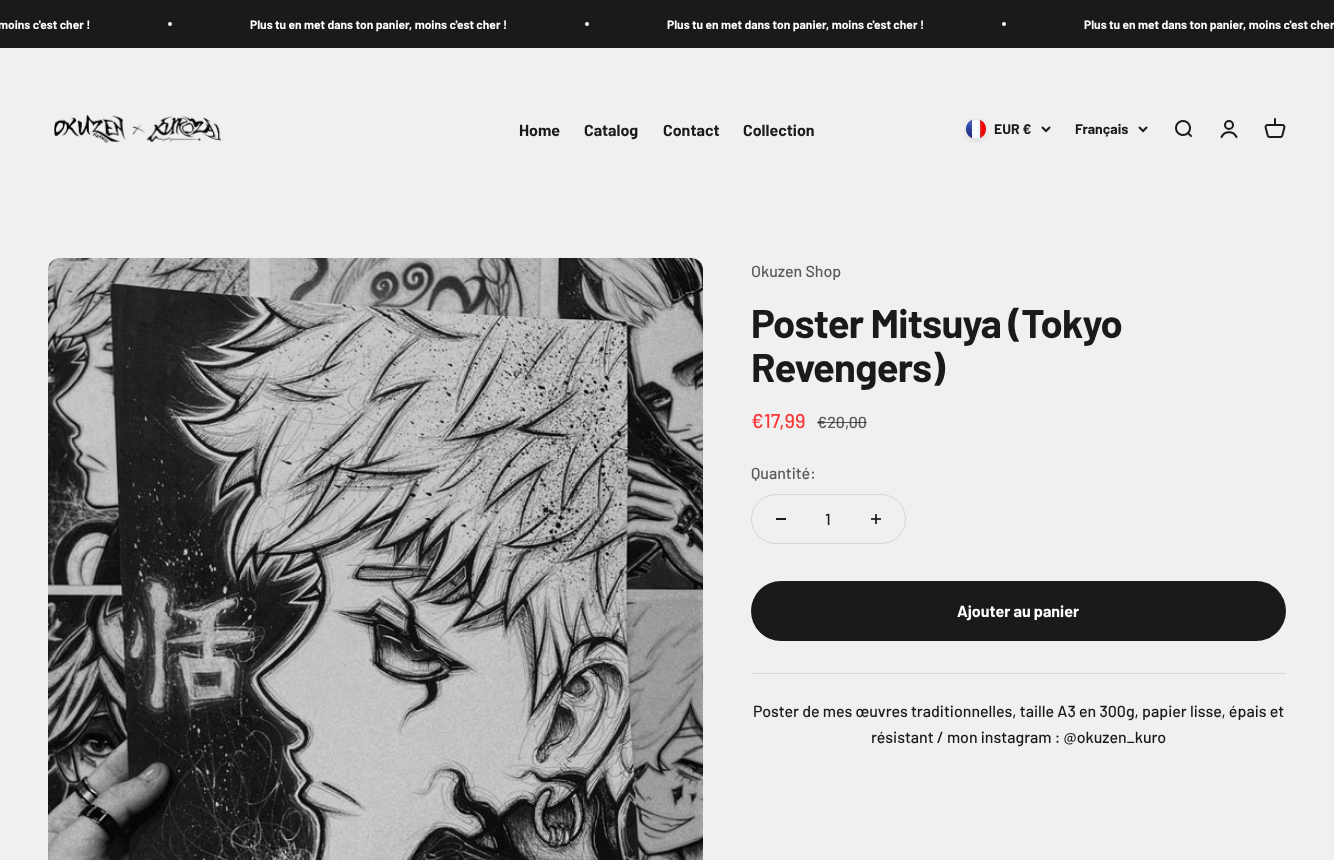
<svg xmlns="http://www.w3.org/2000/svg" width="1334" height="860">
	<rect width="100%" height="100%" fill="#F0F0F0" />
	<rect x="871" y="518" width="10" height="2" fill="#3A3A3A" />
	<rect x="0" y="0" width="1334" height="48" fill="#1A1A1A" />
	<text x="-2" y="29" font-family="Barlow" font-size="12" font-weight="700" fill="#FFFFFF">moins c'est cher !</text>
	<circle cx="170" cy="24" r="2" fill="#FFFFFF" />
	<text x="250" y="29" font-family="Barlow" font-size="12" font-weight="700" fill="#FFFFFF">Plus tu en met dans ton panier, moins c'est cher !</text>
	<circle cx="587" cy="24" r="2" fill="#FFFFFF" />
	<text x="667" y="29" font-family="Barlow" font-size="12" font-weight="700" fill="#FFFFFF">Plus tu en met dans ton panier, moins c'est cher !</text>
	<circle cx="1004" cy="24" r="2" fill="#FFFFFF" />
	<text x="1084" y="29" font-family="Barlow" font-size="12" font-weight="700" fill="#FFFFFF">Plus tu en met dans ton panier, moins c'est cher</text>
	<image x="54" y="114" width="168" height="30" href="assets/img1.png" />
	<g font-family="Barlow" font-size="16" font-weight="700" fill="#1A1A1A">
		<text x="519" y="136">Home</text>
		<text x="584" y="136">Catalog</text>
		<text x="663" y="136">Contact</text>
		<text x="743" y="136">Collection</text>
	</g>
	<image x="964" y="119" width="24" height="24" href="assets/img2.png" />
	<text x="994" y="134" font-family="Barlow" font-size="14" font-weight="700" fill="#1A1A1A">EUR €</text>
	<path d="M1042 127L1046 131L1050 127" fill="none" stroke="#1A1A1A" stroke-width="2" />
	<text x="1075" y="134" font-family="Barlow" font-size="14" font-weight="700" fill="#1A1A1A">Français</text>
	<path d="M1139 127L1143 131L1147 127" fill="none" stroke="#1A1A1A" stroke-width="2" />
	<image x="1175" y="120" width="17" height="17" href="assets/img3.png" />
	<circle cx="1229" cy="125" r="4" fill="none" stroke="#1A1A1A" stroke-width="2" />
	<path d="M1221.5 137C1224.5 130.5 1233.5 130.5 1236.5 137" fill="none" stroke="#1A1A1A" stroke-width="2" stroke-linecap="round" />
	<image x="1264" y="118" width="22" height="20" href="assets/img4.png" />
	<image x="48" y="258" width="655" height="602" href="assets/img5.png" />
	<text x="751" y="277" font-family="Barlow" font-size="16" font-weight="500" fill="#5A5A5A">Okuzen Shop</text>
	<g font-family="Barlow" font-size="40" font-weight="700" letter-spacing="-0.8" fill="#1A1A1A">
		<text x="751" y="338">Poster Mitsuya (Tokyo</text>
		<text x="751" y="382">Revengers)</text>
	</g>
	<text x="751" y="428" font-family="Barlow" font-size="20" font-weight="500" fill="#F83A3A">€17,99</text>
	<text x="817" y="428" font-family="Barlow" font-size="16" font-weight="500" fill="#5A5A5A">€20,00</text>
	<rect x="817" y="422" width="50" height="1" fill="#1A1A1A" fill-opacity="0.7" />
	<text x="751" y="479" font-family="Barlow" font-size="16" font-weight="500" fill="#5A5A5A">Quantité:</text>
	<rect x="751.5" y="494.5" width="154" height="49" rx="24.5" fill="none" stroke="#D6D6D6" />
	<rect x="776" y="518" width="10" height="2" fill="#1A1A1A" />
	<text x="825" y="525" font-family="Barlow" font-size="16" font-weight="500" fill="#1A1A1A">1</text>
	<rect x="875" y="514" width="2" height="10" fill="#3A3A3A" />
	<rect x="875" y="518" width="2" height="2" fill="#1F1F1F" />
	<rect x="751" y="581" width="535" height="60" rx="30" fill="#1A1A1A" />
	<text x="957" y="617" font-family="Barlow" font-size="16" font-weight="700" fill="#FFFFFF">Ajouter au panier</text>
	<rect x="751" y="673" width="535" height="1" fill="#D6D6D6" />
	<g font-family="Barlow" font-size="16" font-weight="500" fill="#1A1A1A">
		<text x="753" y="717">Poster de mes œuvres traditionnelles, taille A3 en 300g, papier lisse, épais et</text>
		<text x="871" y="743">résistant / mon instagram : @okuzen_kuro</text>
	</g>
</svg>
